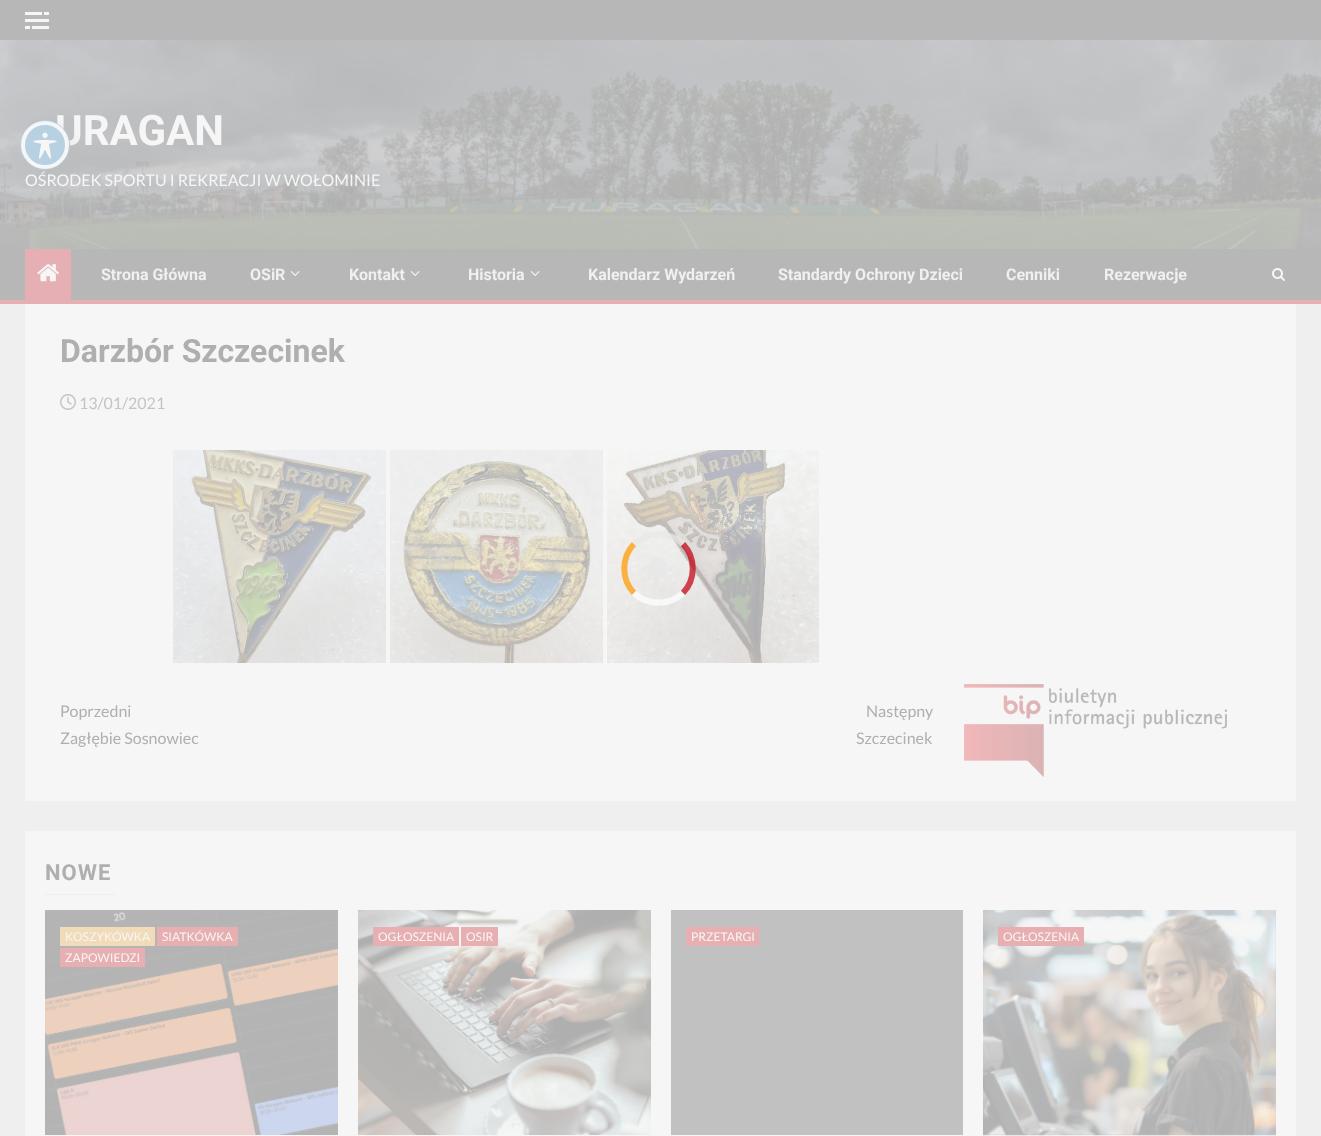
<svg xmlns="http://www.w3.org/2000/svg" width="1321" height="1136">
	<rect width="100%" height="100%" fill="#EFEFEF" />
	<image x="0" y="40" width="1321" height="209" href="assets/img2.png" />
	<text x="55" y="145" font-family="Roboto" font-size="42" font-weight="700" fill="#F6F6F6">URAGAN</text>
	<circle cx="45" cy="145" r="24.5" fill="none" stroke="#B7D1E3" />
	<rect x="27" y="129" width="48" height="48" rx="24" fill="#AFAFAF" fill-opacity="0.2" filter="blur(8px)" />
	<circle cx="45" cy="145" r="22" fill="#B7D1E3" stroke="#F6F6F6" stroke-width="4" />
	<image x="33" y="132" width="24" height="27" href="assets/img1.png" />
	<rect x="0" y="0" width="1321" height="40" fill="#B7B7B7" />
	<rect x="44" y="12" width="5" height="3" fill="#F6F6F6" />
	<rect x="25" y="12" width="17" height="3" fill="#F6F6F6" />
	<rect x="25" y="19" width="24" height="3" fill="#F6F6F6" />
	<rect x="32" y="26" width="17" height="3" fill="#F6F6F6" />
	<rect x="25" y="26" width="5" height="3" fill="#F6F6F6" />
	<text x="25" y="186" font-family="Lato" font-size="16" fill="#F6F6F6">OŚRODEK SPORTU I REKREACJI W WOŁOMINIE</text>
	<rect x="0" y="249" width="1321" height="51" fill="#B7B7B7" />
	<rect x="0" y="300" width="1321" height="4" fill="#E6AFB3" />
	<rect x="25" y="249" width="46" height="51" fill="#E6AFB3" />
	<image x="37" y="264" width="22" height="18" href="assets/img3.png" />
	<g font-family="Roboto" font-size="16" font-weight="700" fill="#F0F0F0">
		<text x="101" y="280">Strona Główna</text>
		<text x="250" y="280">OSiR</text>
	</g>
	<image x="290" y="271" width="10" height="6" href="assets/img4.png" />
	<text x="349" y="280" font-family="Roboto" font-size="16" font-weight="700" fill="#F0F0F0">Kontakt</text>
	<image x="410" y="271" width="10" height="6" href="assets/img4.png" />
	<text x="468" y="280" font-family="Roboto" font-size="16" font-weight="700" fill="#F0F0F0">Historia</text>
	<image x="530" y="271" width="10" height="6" href="assets/img4.png" />
	<g font-family="Roboto" font-size="16" font-weight="700" fill="#F0F0F0">
		<text x="588" y="280">Kalendarz Wydarzeń</text>
		<text x="778" y="280">Standardy Ochrony Dzieci</text>
		<text x="1006" y="280">Cenniki</text>
		<text x="1104" y="280">Rezerwacje</text>
	</g>
	<image x="1272" y="268" width="13" height="13" href="assets/img5.png" />
	<rect x="25" y="304" width="1271" height="497" fill="#F6F6F6" />
	<text x="60" y="362" font-family="Roboto" font-size="32" font-weight="700" fill="#AFAFAF">Darzbór Szczecinek</text>
	<image x="60" y="394" width="16" height="16" href="assets/img6.png" />
	<text x="79" y="409" font-family="Lato" font-size="16" fill="#C4C4C4">13/01/2021</text>
	<image x="173" y="450" width="213" height="213" href="assets/img7.png" />
	<image x="390" y="450" width="213" height="213" href="assets/img8.png" />
	<image x="607" y="450" width="212" height="213" href="assets/img9.png" />
	<g font-family="Lato" font-size="16" fill="#AFAFAF">
		<text x="60" y="717">Poprzedni</text>
		<text x="60" y="744">Zagłębie Sosnowiec</text>
		<text x="866" y="717">Następny</text>
		<text x="856" y="744">Szczecinek</text>
	</g>
	<image x="964" y="684" width="263" height="93" href="assets/img10.png" />
	<rect x="25" y="831" width="1271" height="305" fill="#F6F6F6" />
	<text x="45" y="880" font-family="Roboto" font-size="22" font-weight="700" letter-spacing="1" fill="#AFAFAF">NOWE</text>
	<rect x="45" y="894" width="71" height="1" fill="#EFEFEF" />
	<image x="45" y="910" width="293" height="225" href="assets/img11.png" />
	<rect x="60" y="927" width="95" height="19" fill="#F2DBB8" />
	<text x="65" y="941" font-family="Lato" font-size="12" fill="#F6F6F6">KOSZYKÓWKA</text>
	<rect x="157" y="927" width="81" height="19" fill="#E8AFB3" />
	<text x="162" y="941" font-family="Lato" font-size="12" fill="#F6F6F6">SIATKÓWKA</text>
	<rect x="60" y="948" width="85" height="19" fill="#E8AFB3" />
	<text x="65" y="962" font-family="Lato" font-size="12" fill="#F6F6F6">ZAPOWIEDZI</text>
	<image x="358" y="910" width="293" height="225" href="assets/img12.png" />
	<rect x="373" y="927" width="86" height="19" fill="#E8AFB3" />
	<text x="378" y="941" font-family="Lato" font-size="12" fill="#F6F6F6">OGŁOSZENIA</text>
	<rect x="461" y="927" width="37" height="19" fill="#E8AFB3" />
	<text x="466" y="941" font-family="Lato" font-size="12" fill="#F6F6F6">OSIR</text>
	<rect x="671" y="910" width="292" height="225" fill="#C1C1C1" />
	<rect x="686" y="927" width="73" height="19" fill="#E8AFB3" />
	<text x="691" y="941" font-family="Lato" font-size="12" fill="#F6F6F6">PRZETARGI</text>
	<rect x="983" y="910" width="293" height="225" fill="#C1C1C1" />
	<image x="983" y="910" width="293" height="226" href="assets/img13.png" />
	<rect x="998" y="927" width="86" height="19" fill="#E8AFB3" />
	<text x="1003" y="941" font-family="Lato" font-size="12" fill="#F6F6F6">OGŁOSZENIA</text>
	<path d="M683 544C696 557.5 696 579.5 683 593" fill="none" stroke="#C30010" stroke-opacity="0.72" stroke-width="6" />
	<path d="M634 593C621 579.5 621 557.5 634 544" fill="none" stroke="#FF9800" stroke-opacity="0.72" stroke-width="6" />
	<path d="M634 544C647.5 531 669.5 531 683 544" fill="none" stroke="#E7E7E7" stroke-opacity="0.72" stroke-width="6" />
	<path d="M683 593C669.5 606 647.5 606 634 593" fill="none" stroke="#FFFFFF" stroke-opacity="0.72" stroke-width="6" />
	<circle cx="658" cy="568" r="10" fill="#E7E7E7" fill-opacity="0.72" />
</svg>
